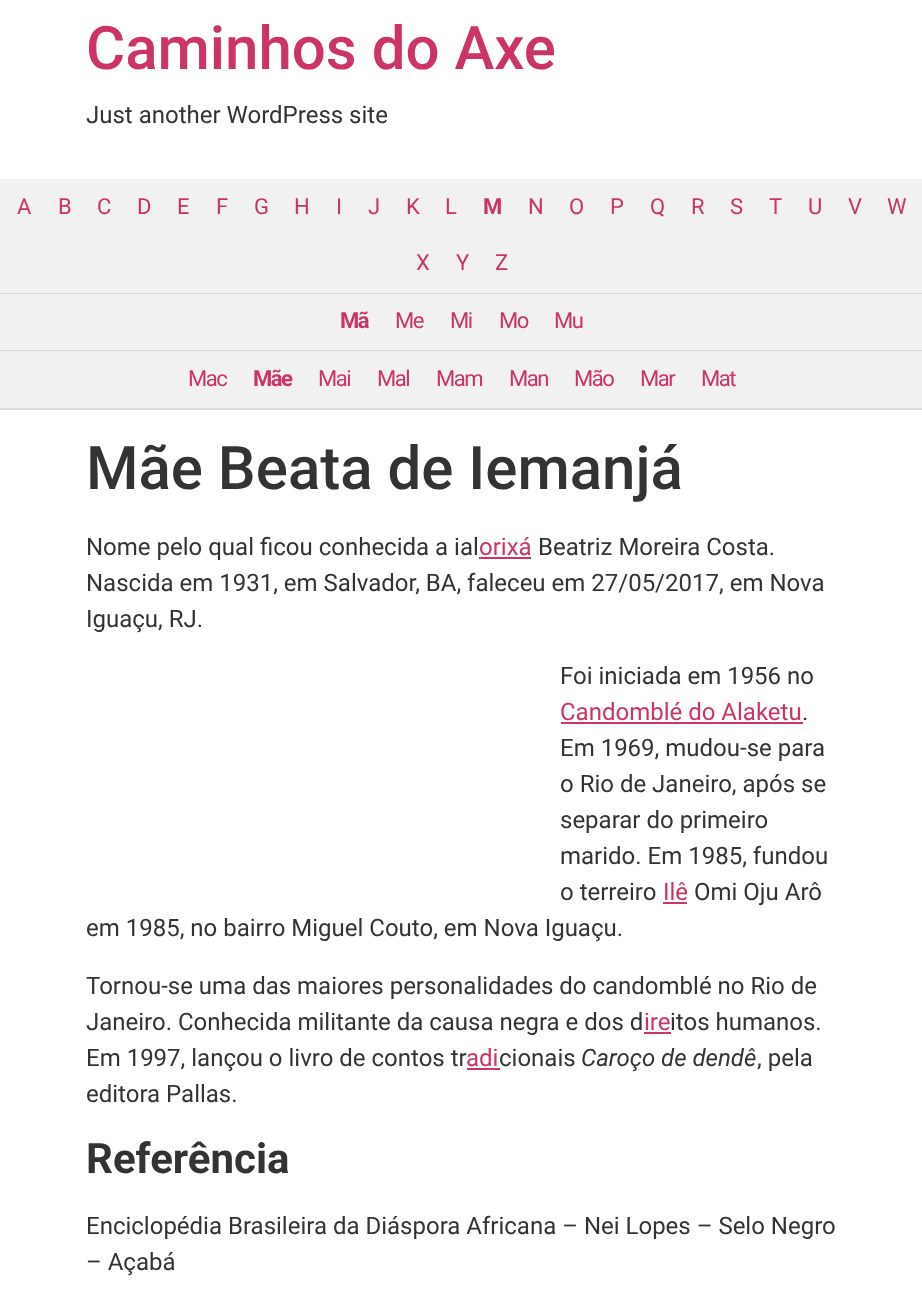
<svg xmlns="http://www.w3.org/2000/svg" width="922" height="1301">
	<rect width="100%" height="100%" fill="#FFFFFF" />
	<text x="86" y="69" font-family="Roboto" font-size="60" font-weight="500" fill="#CC3366">Caminhos do Axe</text>
	<text x="86" y="123" font-family="Roboto" font-size="24" fill="#333333">Just another WordPress site</text>
	<rect x="0" y="179" width="922" height="114" fill="#F1F1F1" />
	<rect x="0" y="293" width="922" height="1" fill="#D9D9D9" />
	<g font-family="Roboto" font-size="22" letter-spacing="-1.5" fill="#CC3366">
		<text x="17" y="214">A</text>
		<text x="58" y="214">B</text>
		<text x="97" y="214">C</text>
		<text x="137" y="214">D</text>
		<text x="177" y="214">E</text>
		<text x="216" y="214">F</text>
		<text x="254" y="214">G</text>
		<text x="294" y="214">H</text>
		<text x="336" y="214">I</text>
		<text x="368" y="214">J</text>
		<text x="406" y="214">K</text>
		<text x="445" y="214">L</text>
	</g>
	<text x="483" y="214" font-family="Roboto" font-size="22" font-weight="700" letter-spacing="-1.5" fill="#CC3366">M</text>
	<g font-family="Roboto" font-size="22" letter-spacing="-1.5" fill="#CC3366">
		<text x="528" y="214">N</text>
		<text x="569" y="214">O</text>
		<text x="610" y="214">P</text>
		<text x="650" y="214">Q</text>
		<text x="691" y="214">R</text>
		<text x="730" y="214">S</text>
		<text x="769" y="214">T</text>
		<text x="808" y="214">U</text>
		<text x="848" y="214">V</text>
		<text x="887" y="214">W</text>
		<text x="416" y="270">X</text>
		<text x="456" y="270">Y</text>
		<text x="495" y="270">Z</text>
	</g>
	<rect x="0" y="294" width="922" height="56" fill="#F1F1F1" />
	<rect x="0" y="350" width="922" height="1" fill="#D9D9D9" />
	<text x="340" y="328" font-family="Roboto" font-size="22" font-weight="700" letter-spacing="-1.5" fill="#CC3366">Mã</text>
	<g font-family="Roboto" font-size="22" letter-spacing="-1.5" fill="#CC3366">
		<text x="395" y="328">Me</text>
		<text x="450" y="328">Mi</text>
		<text x="499" y="328">Mo</text>
		<text x="554" y="328">Mu</text>
	</g>
	<rect x="0" y="351" width="922" height="57" fill="#F1F1F1" />
	<rect x="0" y="408" width="922" height="2" fill="#D9D9D9" />
	<text x="188" y="386" font-family="Roboto" font-size="22" letter-spacing="-1.5" fill="#CC3366">Mac</text>
	<text x="253" y="386" font-family="Roboto" font-size="22" font-weight="700" letter-spacing="-1.5" fill="#CC3366">Mãe</text>
	<g font-family="Roboto" font-size="22" letter-spacing="-1.5" fill="#CC3366">
		<text x="318" y="386">Mai</text>
		<text x="377" y="386">Mal</text>
		<text x="436" y="386">Mam</text>
		<text x="509" y="386">Man</text>
		<text x="574" y="386">Mão</text>
		<text x="640" y="386">Mar</text>
		<text x="701" y="386">Mat</text>
	</g>
	<text x="86" y="489" font-family="Roboto" font-size="60" font-weight="500" fill="#333333">Mãe Beata de Iemanjá</text>
	<text x="86" y="555" font-family="Roboto" font-size="24" fill="#333333">Nome pelo qual ficou conhecida a ial</text>
	<text x="479" y="555" font-family="Roboto" font-size="24" fill="#CC3366">orixá</text>
	<rect x="479" y="557" width="52" height="2" fill="#CC3366" />
	<g font-family="Roboto" font-size="24" fill="#333333">
		<text x="538" y="555">Beatriz Moreira Costa.</text>
		<text x="86" y="591">Nascida em 1931, em Salvador, BA, faleceu em 27/05/2017, em Nova</text>
		<text x="86" y="627">Iguaçu, RJ.</text>
		<text x="560" y="684">Foi iniciada em 1956 no</text>
	</g>
	<text x="560" y="720" font-family="Roboto" font-size="24" fill="#CC3366">Candomblé do Alaketu</text>
	<rect x="561" y="722" width="242" height="2" fill="#CC3366" />
	<g font-family="Roboto" font-size="24" fill="#333333">
		<text x="802" y="720">.</text>
		<text x="560" y="756">Em 1969, mudou-se para</text>
		<text x="560" y="792">o Rio de Janeiro, após se</text>
		<text x="560" y="828">separar do primeiro</text>
		<text x="560" y="864">marido. Em 1985, fundou</text>
		<text x="560" y="900">o terreiro</text>
	</g>
	<text x="663" y="900" font-family="Roboto" font-size="24" fill="#CC3366">Ilê</text>
	<rect x="663" y="902" width="24" height="2" fill="#CC3366" />
	<g font-family="Roboto" font-size="24" fill="#333333">
		<text x="694" y="900">Omi Oju Arô</text>
		<text x="86" y="936">em 1985, no bairro Miguel Couto, em Nova Iguaçu.</text>
		<text x="86" y="994">Tornou-se uma das maiores personalidades do candomblé no Rio de</text>
		<text x="86" y="1030">Janeiro. Conhecida militante da causa negra e dos d</text>
	</g>
	<text x="644" y="1030" font-family="Roboto" font-size="24" fill="#CC3366">ire</text>
	<rect x="644" y="1032" width="27" height="2" fill="#CC3366" />
	<g font-family="Roboto" font-size="24" fill="#333333">
		<text x="670" y="1030">itos humanos.</text>
		<text x="86" y="1066">Em 1997, lançou o livro de contos tr</text>
	</g>
	<text x="466" y="1066" font-family="Roboto" font-size="24" fill="#CC3366">adi</text>
	<rect x="467" y="1068" width="33" height="2" fill="#CC3366" />
	<text x="499" y="1066" font-family="Roboto" font-size="24" fill="#333333">cionais</text>
	<text x="581" y="1066" font-family="Roboto" font-size="24" font-style="italic" fill="#333333">Caroço de dendê</text>
	<g font-family="Roboto" font-size="24" fill="#333333">
		<text x="757" y="1066">, pela</text>
		<text x="86" y="1102">editora Pallas.</text>
	</g>
	<text x="86" y="1173" font-family="Roboto" font-size="42" font-weight="700" fill="#333333">Referência</text>
	<g font-family="Roboto" font-size="24" fill="#333333">
		<text x="86" y="1234">Enciclopédia Brasileira da Diáspora Africana – Nei Lopes – Selo Negro</text>
		<text x="86" y="1270">– Açabá</text>
	</g>
</svg>
